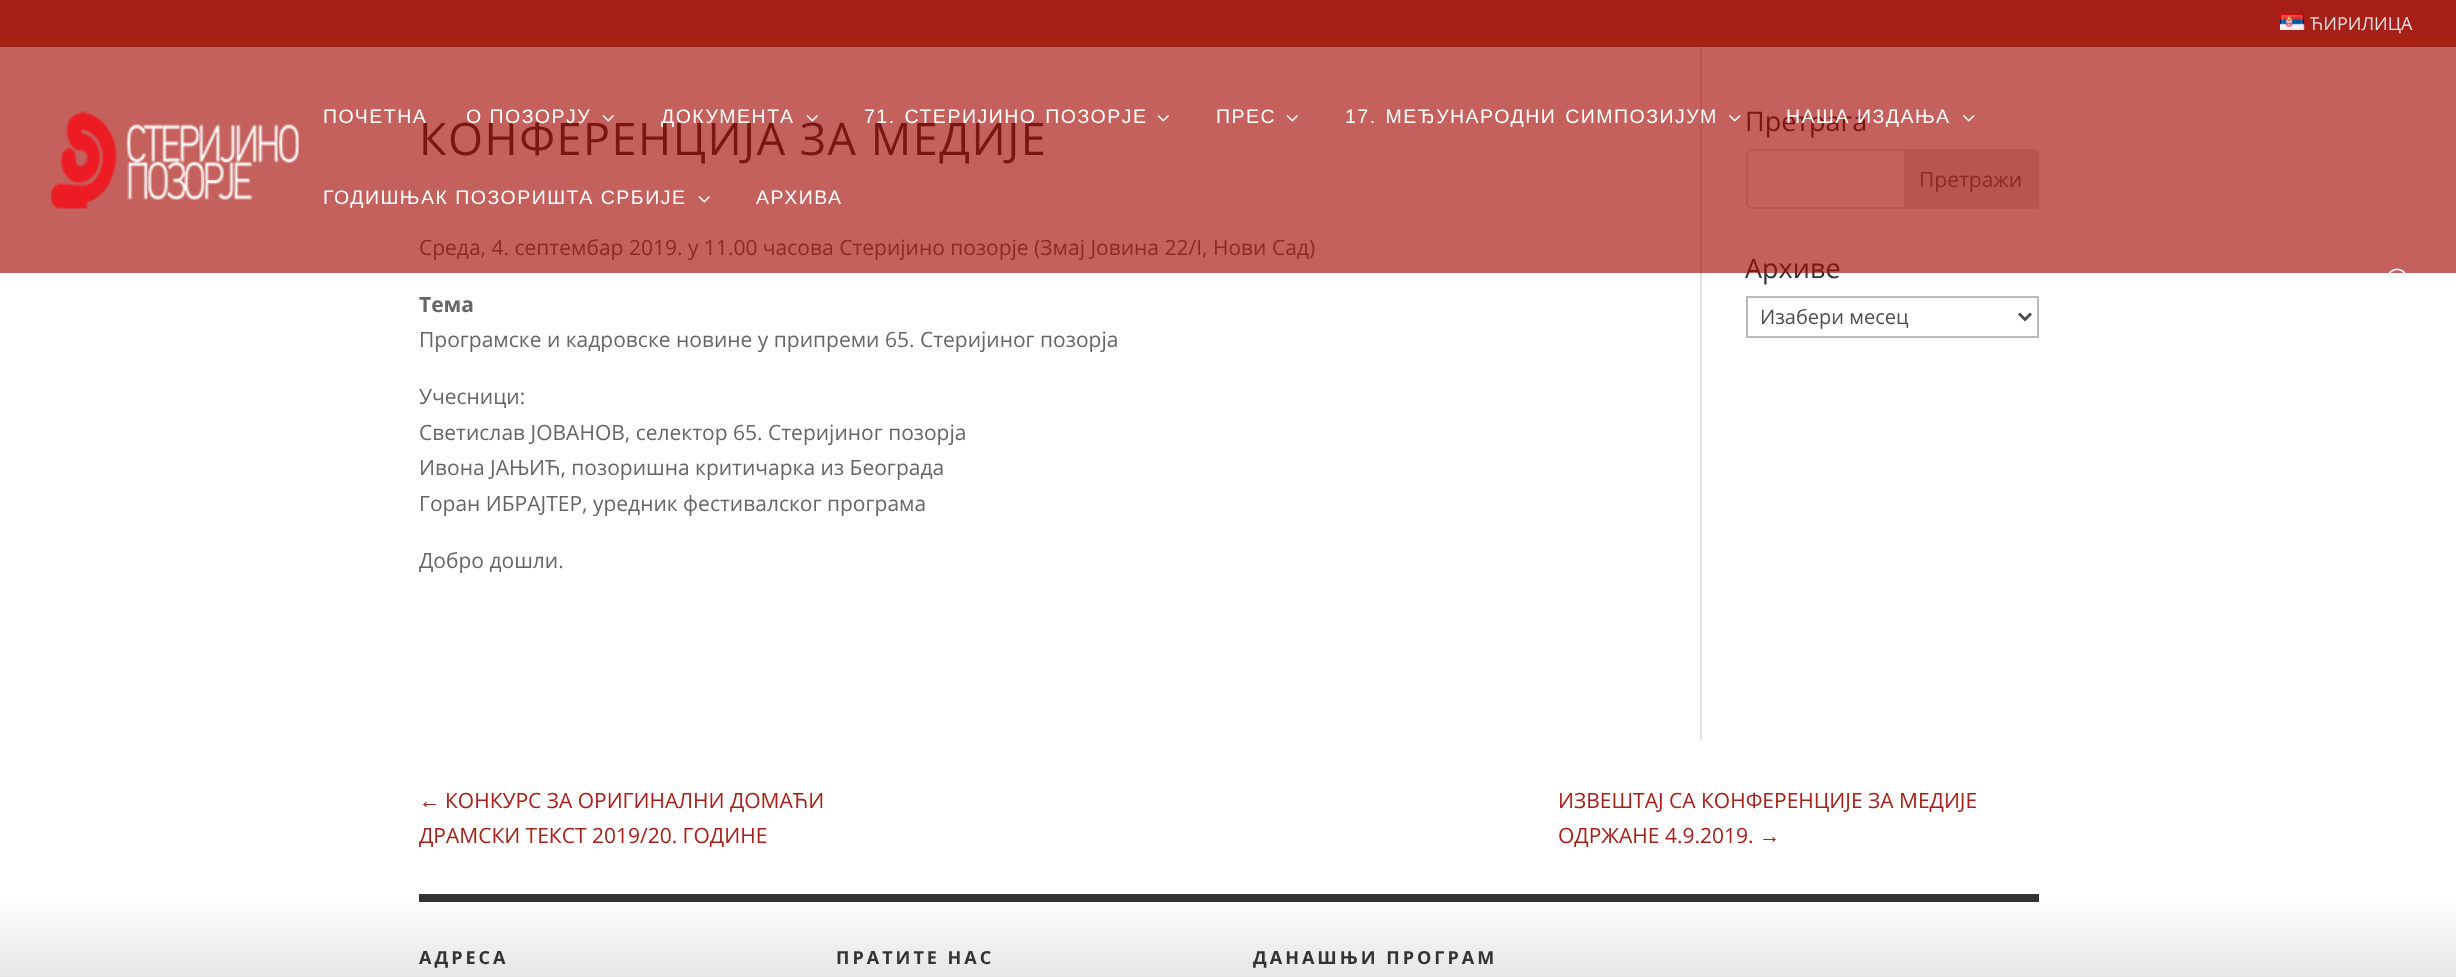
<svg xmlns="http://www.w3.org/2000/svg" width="2456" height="977">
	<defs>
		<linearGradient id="g1" gradientUnits="userSpaceOnUse" x1="1229" y1="894" x2="1229" y2="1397"><stop offset="0" stop-color="#FFFFFF" /><stop offset="1" stop-color="#666666" /></linearGradient>
	</defs>
	<rect width="100%" height="100%" fill="#FFFFFF" />
	<rect x="0" y="0" width="2456" height="47" fill="#A72018" />
	<image x="2280" y="13" width="25" height="17" href="assets/img1.png" />
	<text x="2310" y="30" font-family="Open Sans" font-size="18" fill="#E0E0E0">ЋИРИЛИЦА</text>
	<rect x="1700" y="47" width="2" height="693" fill="#E2E2E2" />
	<text x="419" y="155" font-family="Open Sans" font-size="45" letter-spacing="1.5" fill="#333333">КОНФЕРЕНЦИЈА ЗА МЕДИЈЕ</text>
	<text x="419" y="255" font-family="Open Sans" font-size="21" fill="#666666">Среда, 4. септембар 2019. у 11.00 часова Стеријино позорје (Змај Јовина 22/I, Нови Сад)</text>
	<text x="1745" y="131" font-family="Open Sans" font-size="27" fill="#333333">Претрага</text>
	<rect x="1747" y="150" width="291" height="58" rx="4" fill="none" stroke="#DDDDDD" stroke-width="2" />
	<path d="M1905 150H2034C2036 150 2038 152 2038 154V204C2038 206 2036 208 2034 208H1905Z" fill="#DDDDDD" stroke="#DDDDDD" stroke-width="2" />
	<text x="1919" y="187" font-family="Open Sans" font-size="21" fill="#666666">Претражи</text>
	<text x="1745" y="278" font-family="Open Sans" font-size="27" fill="#333333">Архиве</text>
	<rect x="0" y="47" width="2456" height="226" fill="#A50800" fill-opacity="0.64" />
	<image x="51" y="111" width="248" height="98" href="assets/img2.png" />
	<g font-family="Liberation Sans" font-size="19.5" letter-spacing="1.5" fill="#FFFFFF">
		<text x="323" y="123">ПОЧЕТНА</text>
		<text x="466" y="123">О ПОЗОРЈУ</text>
	</g>
	<image x="602" y="115" width="12" height="7" href="assets/img3.png" />
	<text x="661" y="123" font-family="Liberation Sans" font-size="19.5" letter-spacing="1.5" fill="#FFFFFF">ДОКУМЕНТА</text>
	<image x="806" y="115" width="12" height="7" href="assets/img3.png" />
	<text x="864" y="123" word-spacing="2" font-family="Liberation Sans" font-size="19.5" letter-spacing="1.5" fill="#FFFFFF">71. СТЕРИЈИНО ПОЗОРЈЕ</text>
	<image x="1157" y="115" width="12" height="7" href="assets/img3.png" />
	<text x="1216" y="123" font-family="Liberation Sans" font-size="19.5" letter-spacing="1.5" fill="#FFFFFF">ПРЕС</text>
	<image x="1286" y="115" width="12" height="7" href="assets/img3.png" />
	<text x="1345" y="123" word-spacing="2" font-family="Liberation Sans" font-size="19.5" letter-spacing="1.5" fill="#FFFFFF">17. MЕЂУНАРОДНИ СИМПОЗИЈУМ</text>
	<image x="1729" y="115" width="12" height="7" href="assets/img4.png" />
	<text x="1786" y="123" font-family="Liberation Sans" font-size="19.5" letter-spacing="1.5" fill="#FFFFFF">НАША ИЗДАЊА</text>
	<image x="1963" y="115" width="12" height="7" href="assets/img4.png" />
	<text x="323" y="204" font-family="Liberation Sans" font-size="19.5" letter-spacing="1.5" fill="#FFFFFF">ГОДИШЊАК ПОЗОРИШТА СРБИЈЕ</text>
	<image x="698" y="196" width="12" height="7" href="assets/img3.png" />
	<text x="756" y="204" font-family="Liberation Sans" font-size="19.5" letter-spacing="1.5" fill="#FFFFFF">АРХИВА</text>
	<image x="2388" y="268" width="18" height="5" href="assets/img5.png" />
	<text x="419" y="312" font-family="Open Sans" font-size="21" font-weight="700" fill="#666666">Тема</text>
	<g font-family="Open Sans" font-size="21" fill="#666666">
		<text x="419" y="347">Програмске и кадровске новине у припреми 65. Стеријиног позорја</text>
		<text x="419" y="404">Учесници:</text>
		<text x="419" y="440">Светислав ЈОВАНОВ, селектор 65. Стеријиног позорја</text>
		<text x="419" y="475">Ивона ЈАЊИЋ, позоришна критичарка из Београда</text>
		<text x="419" y="511">Горан ИБРАЈТЕР, уредник фестивалског програма</text>
		<text x="419" y="568">Добро дошли.</text>
	</g>
	<rect x="1747" y="297" width="291" height="40" fill="none" stroke="#BBBBBB" stroke-width="2" />
	<path d="M2019 313.5L2025 319.5L2031 313.5" fill="none" stroke="#4E4E4E" stroke-width="3" />
	<text x="1760" y="324" font-family="Open Sans" font-size="20" fill="#4E4E4E">Изабери месец</text>
	<text x="419" y="808" font-family="Liberation Sans" font-size="21" fill="#A72018">←</text>
	<g font-family="Open Sans" font-size="21" fill="#A72018">
		<text x="445" y="808">КОНКУРС ЗА ОРИГИНАЛНИ ДОМАЋИ</text>
		<text x="419" y="843">ДРАМСКИ ТЕКСТ 2019/20. ГОДИНЕ</text>
		<text x="1558" y="808">ИЗВЕШТАЈ СА КОНФЕРЕНЦИЈЕ ЗА МЕДИЈЕ</text>
		<text x="1558" y="843">ОДРЖАНЕ 4.9.2019.</text>
	</g>
	<text x="1759" y="843" font-family="Liberation Sans" font-size="21" fill="#A72018">→</text>
	<rect x="0" y="902" width="2456" height="75" fill="url(#g1)" />
	<rect x="419" y="894" width="1620" height="8" fill="#333333" />
	<g font-family="Open Sans" font-size="18" font-weight="700" letter-spacing="3" fill="#333333">
		<text x="419" y="964">АДРЕСА</text>
		<text x="836" y="964">ПРАТИТЕ НАС</text>
		<text x="1253" y="964">ДАНАШЊИ ПРОГРАМ</text>
	</g>
</svg>
